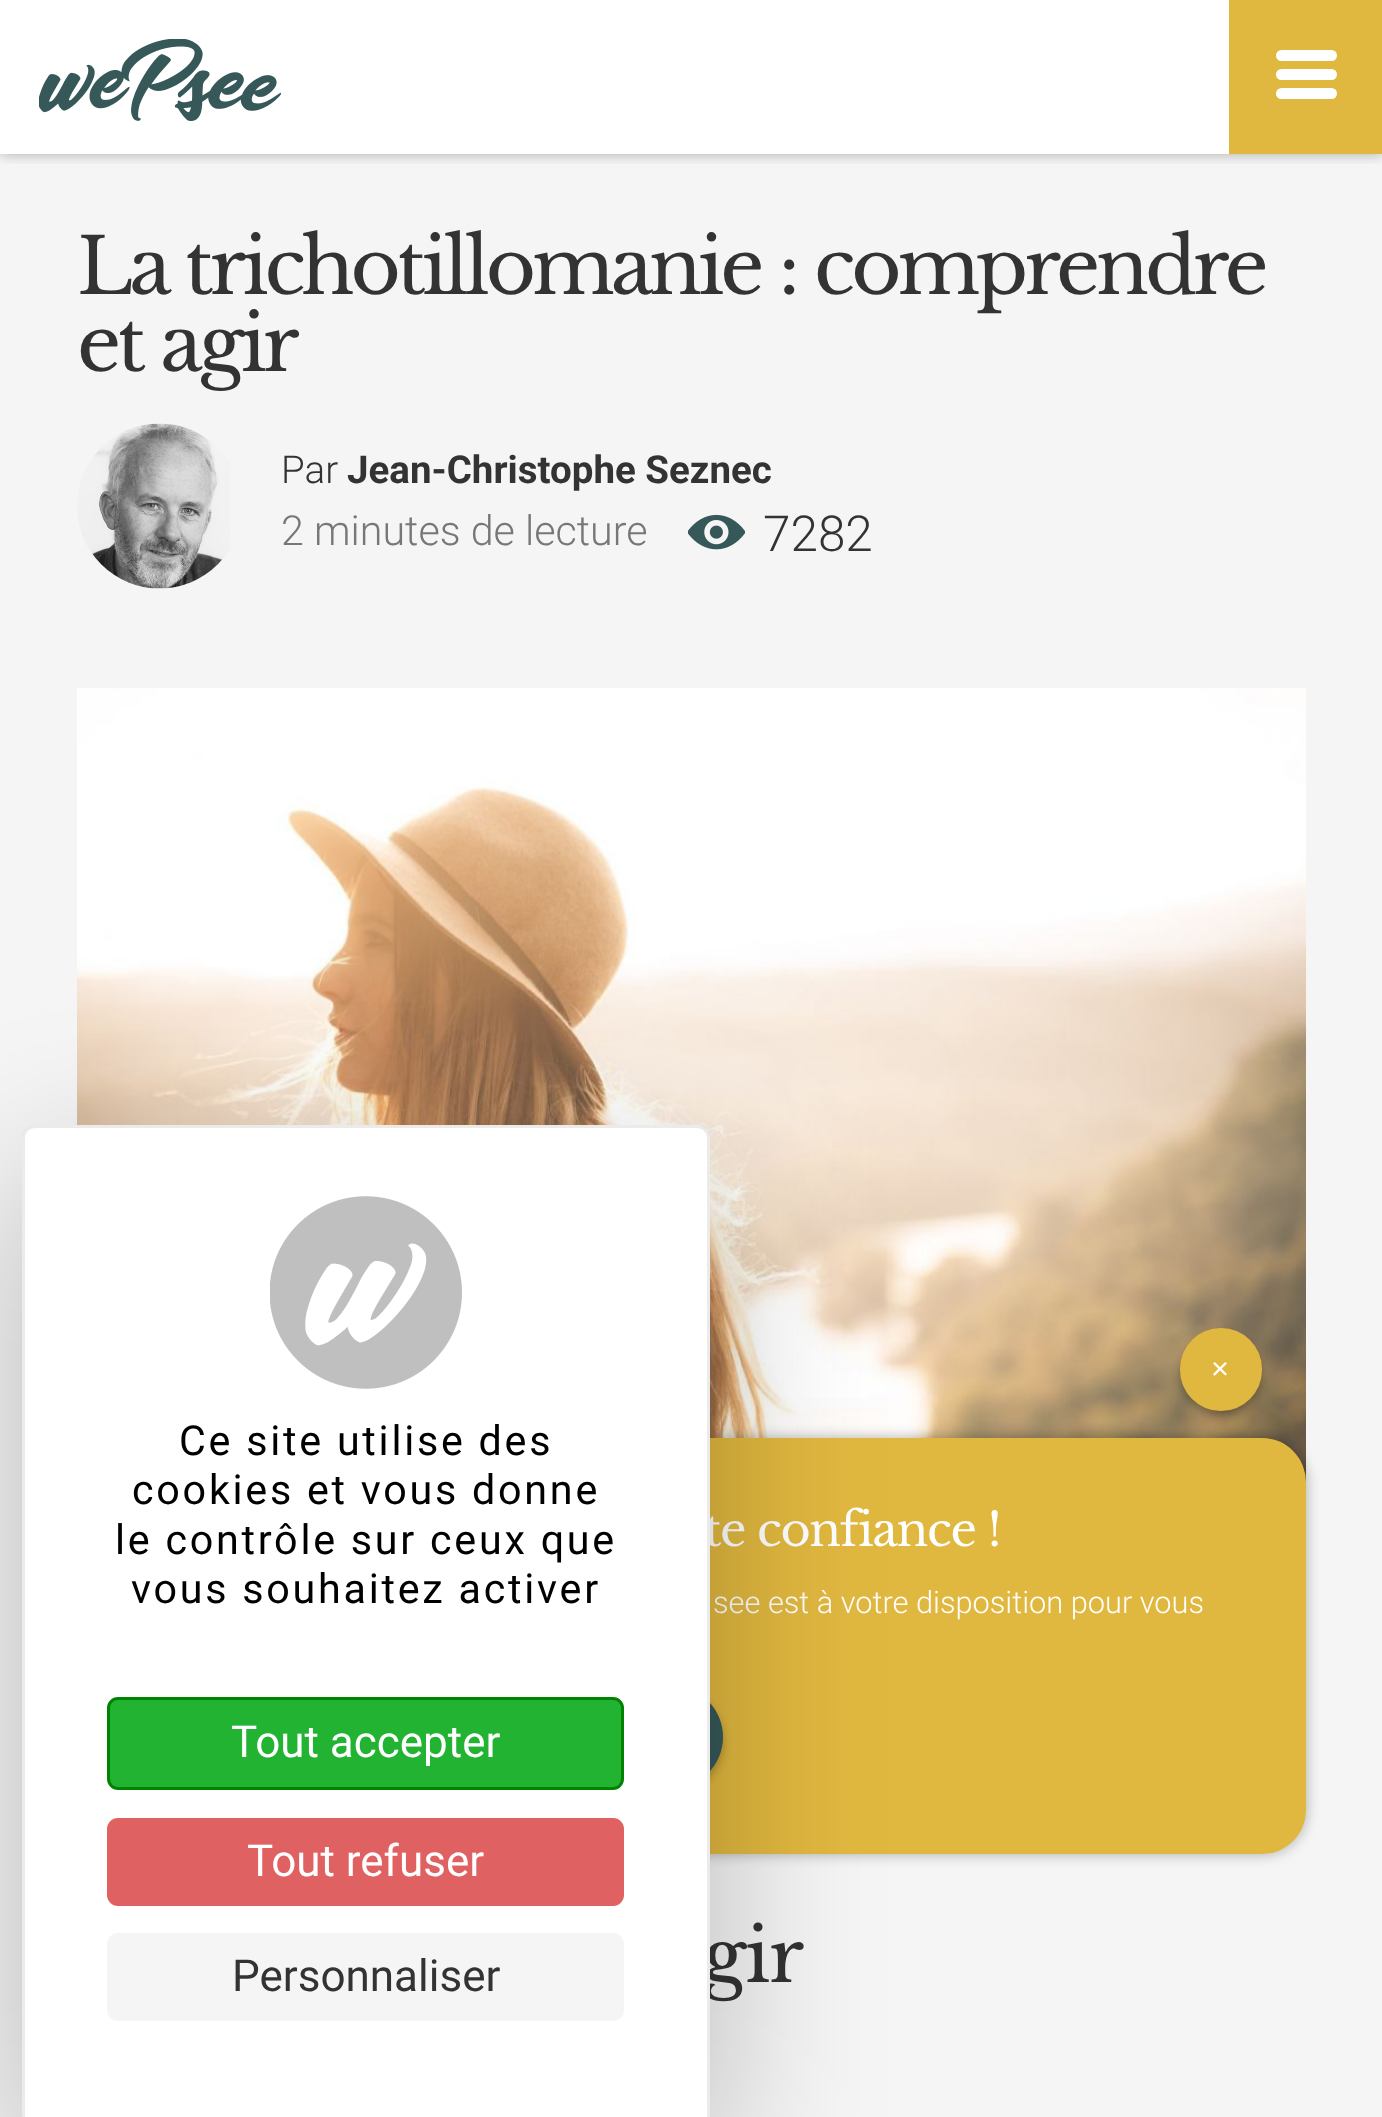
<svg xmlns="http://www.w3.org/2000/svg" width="1382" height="2117">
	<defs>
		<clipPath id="clip1"><rect x="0" y="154" width="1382" height="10" /></clipPath>
	</defs>
	<rect width="100%" height="100%" fill="#FFFFFF" />
	<rect x="0" y="154" width="1382" height="1963" fill="#F5F5F5" />
	<g clip-path="url(#clip1)">
		<rect x="0" y="0" width="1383" height="154" fill="#000000" fill-opacity="0.3" filter="blur(7px)" />
	</g>
	<image x="39" y="39" width="242" height="82" href="assets/img1.png" />
	<rect x="1229" y="0" width="153" height="154" fill="#E1B83F" />
	<rect x="1276" y="50" width="61" height="11" rx="5.5" fill="#FFFFFF" />
	<rect x="1276" y="69" width="61" height="11" rx="5.5" fill="#FFFFFF" />
	<rect x="1276" y="88" width="61" height="11" rx="5.5" fill="#FFFFFF" />
	<g font-family="Libre Baskerville" font-size="77" letter-spacing="-4.1" fill="#333333">
		<text x="77" y="294">La trichotillomanie : comprendre</text>
		<text x="77" y="371">et agir</text>
	</g>
	<image x="77" y="423" width="153" height="166" href="assets/img2.png" />
	<text x="281" y="483" font-family="Roboto" font-size="38.5" font-weight="300" fill="#333333">Par</text>
	<text x="347" y="483" font-family="Roboto" font-size="38.5" font-weight="700" fill="#333333">Jean-Christophe Seznec</text>
	<text x="281" y="545" font-family="Roboto" font-size="41.25" font-weight="300" fill="#777777">2 minutes de lecture</text>
	<image x="688" y="514" width="57" height="36" href="assets/img3.png" />
	<text x="763" y="551" font-family="Roboto" font-size="49.5" font-weight="300" fill="#333333">7282</text>
	<image x="77" y="688" width="1229" height="794" href="assets/img4.png" />
	<rect x="77" y="1438" width="1229" height="416" rx="44" fill="#000000" fill-opacity="0.3" filter="blur(7px)" />
	<rect x="77" y="1438" width="1229" height="416" rx="44" fill="#E1B83F" />
	<rect x="1180" y="1334" width="82" height="82" rx="41" fill="#000000" fill-opacity="0.25" filter="blur(4px)" />
	<rect x="1180" y="1328" width="82" height="83" rx="41" fill="#E1B83F" />
	<text x="1211" y="1379" font-family="Liberation Sans" font-size="30.75" letter-spacing="1" fill="#FFFFFF">×</text>
	<text x="704" y="1546" font-family="Libre Baskerville" font-size="46.25" letter-spacing="-1.4" fill="#FFFFFF">te confiance !</text>
	<text x="713" y="1613" font-family="Roboto" font-size="30.75" font-weight="300" fill="#FFFFFF">see est à votre disposition pour vous</text>
	<rect x="168" y="1691" width="555" height="102" rx="51" fill="#000000" fill-opacity="0.25" filter="blur(4px)" />
	<rect x="168" y="1686" width="555" height="102" rx="51" fill="#365858" />
	<text x="702" y="1982" font-family="Libre Baskerville" font-size="74" letter-spacing="-1.4" fill="#333333">gir</text>
	<rect x="22" y="1180" width="688" height="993" rx="14" fill="#000000" fill-opacity="0.25" filter="blur(82.5px)" />
	<path d="M36 1125H696C703.5 1125 710 1131.5 710 1139V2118H22V1139C22 1131.5 28.5 1125 36 1125Z" fill="#FFFFFF" />
	<path d="M36 1125H696C703 1125 710 1131 710 1138V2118H22V1138C22 1131 28 1125 36 1125ZM36 1128H696C702 1128 707 1132 707 1138V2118H25V1138C25 1132 30 1128 36 1128Z" fill="#000000" fill-opacity="0.08" fill-rule="evenodd" />
	<image x="270" y="1196" width="192" height="193" href="assets/img5.png" />
	<g font-family="Roboto" font-size="41.25" letter-spacing="2.75" fill="#000000">
		<text x="179" y="1455">Ce site utilise des</text>
		<text x="132" y="1504">cookies et vous donne</text>
		<text x="115" y="1554">le contrôle sur ceux que</text>
		<text x="131" y="1603">vous souhaitez activer</text>
	</g>
	<rect x="108.5" y="1698.5" width="514" height="90" rx="9.5" fill="#22B333" stroke="#008300" stroke-width="3" />
	<text x="231" y="1757" font-family="Roboto" font-size="44" fill="#FFFFFF">Tout accepter</text>
	<rect x="107" y="1818" width="517" height="88" rx="11" fill="#E06161" />
	<text x="247" y="1876" font-family="Roboto" font-size="44" fill="#FFFFFF">Tout refuser</text>
	<rect x="107" y="1933" width="517" height="88" rx="11" fill="#F5F5F5" />
	<text x="232" y="1991" font-family="Roboto" font-size="44" fill="#333333">Personnaliser</text>
</svg>
